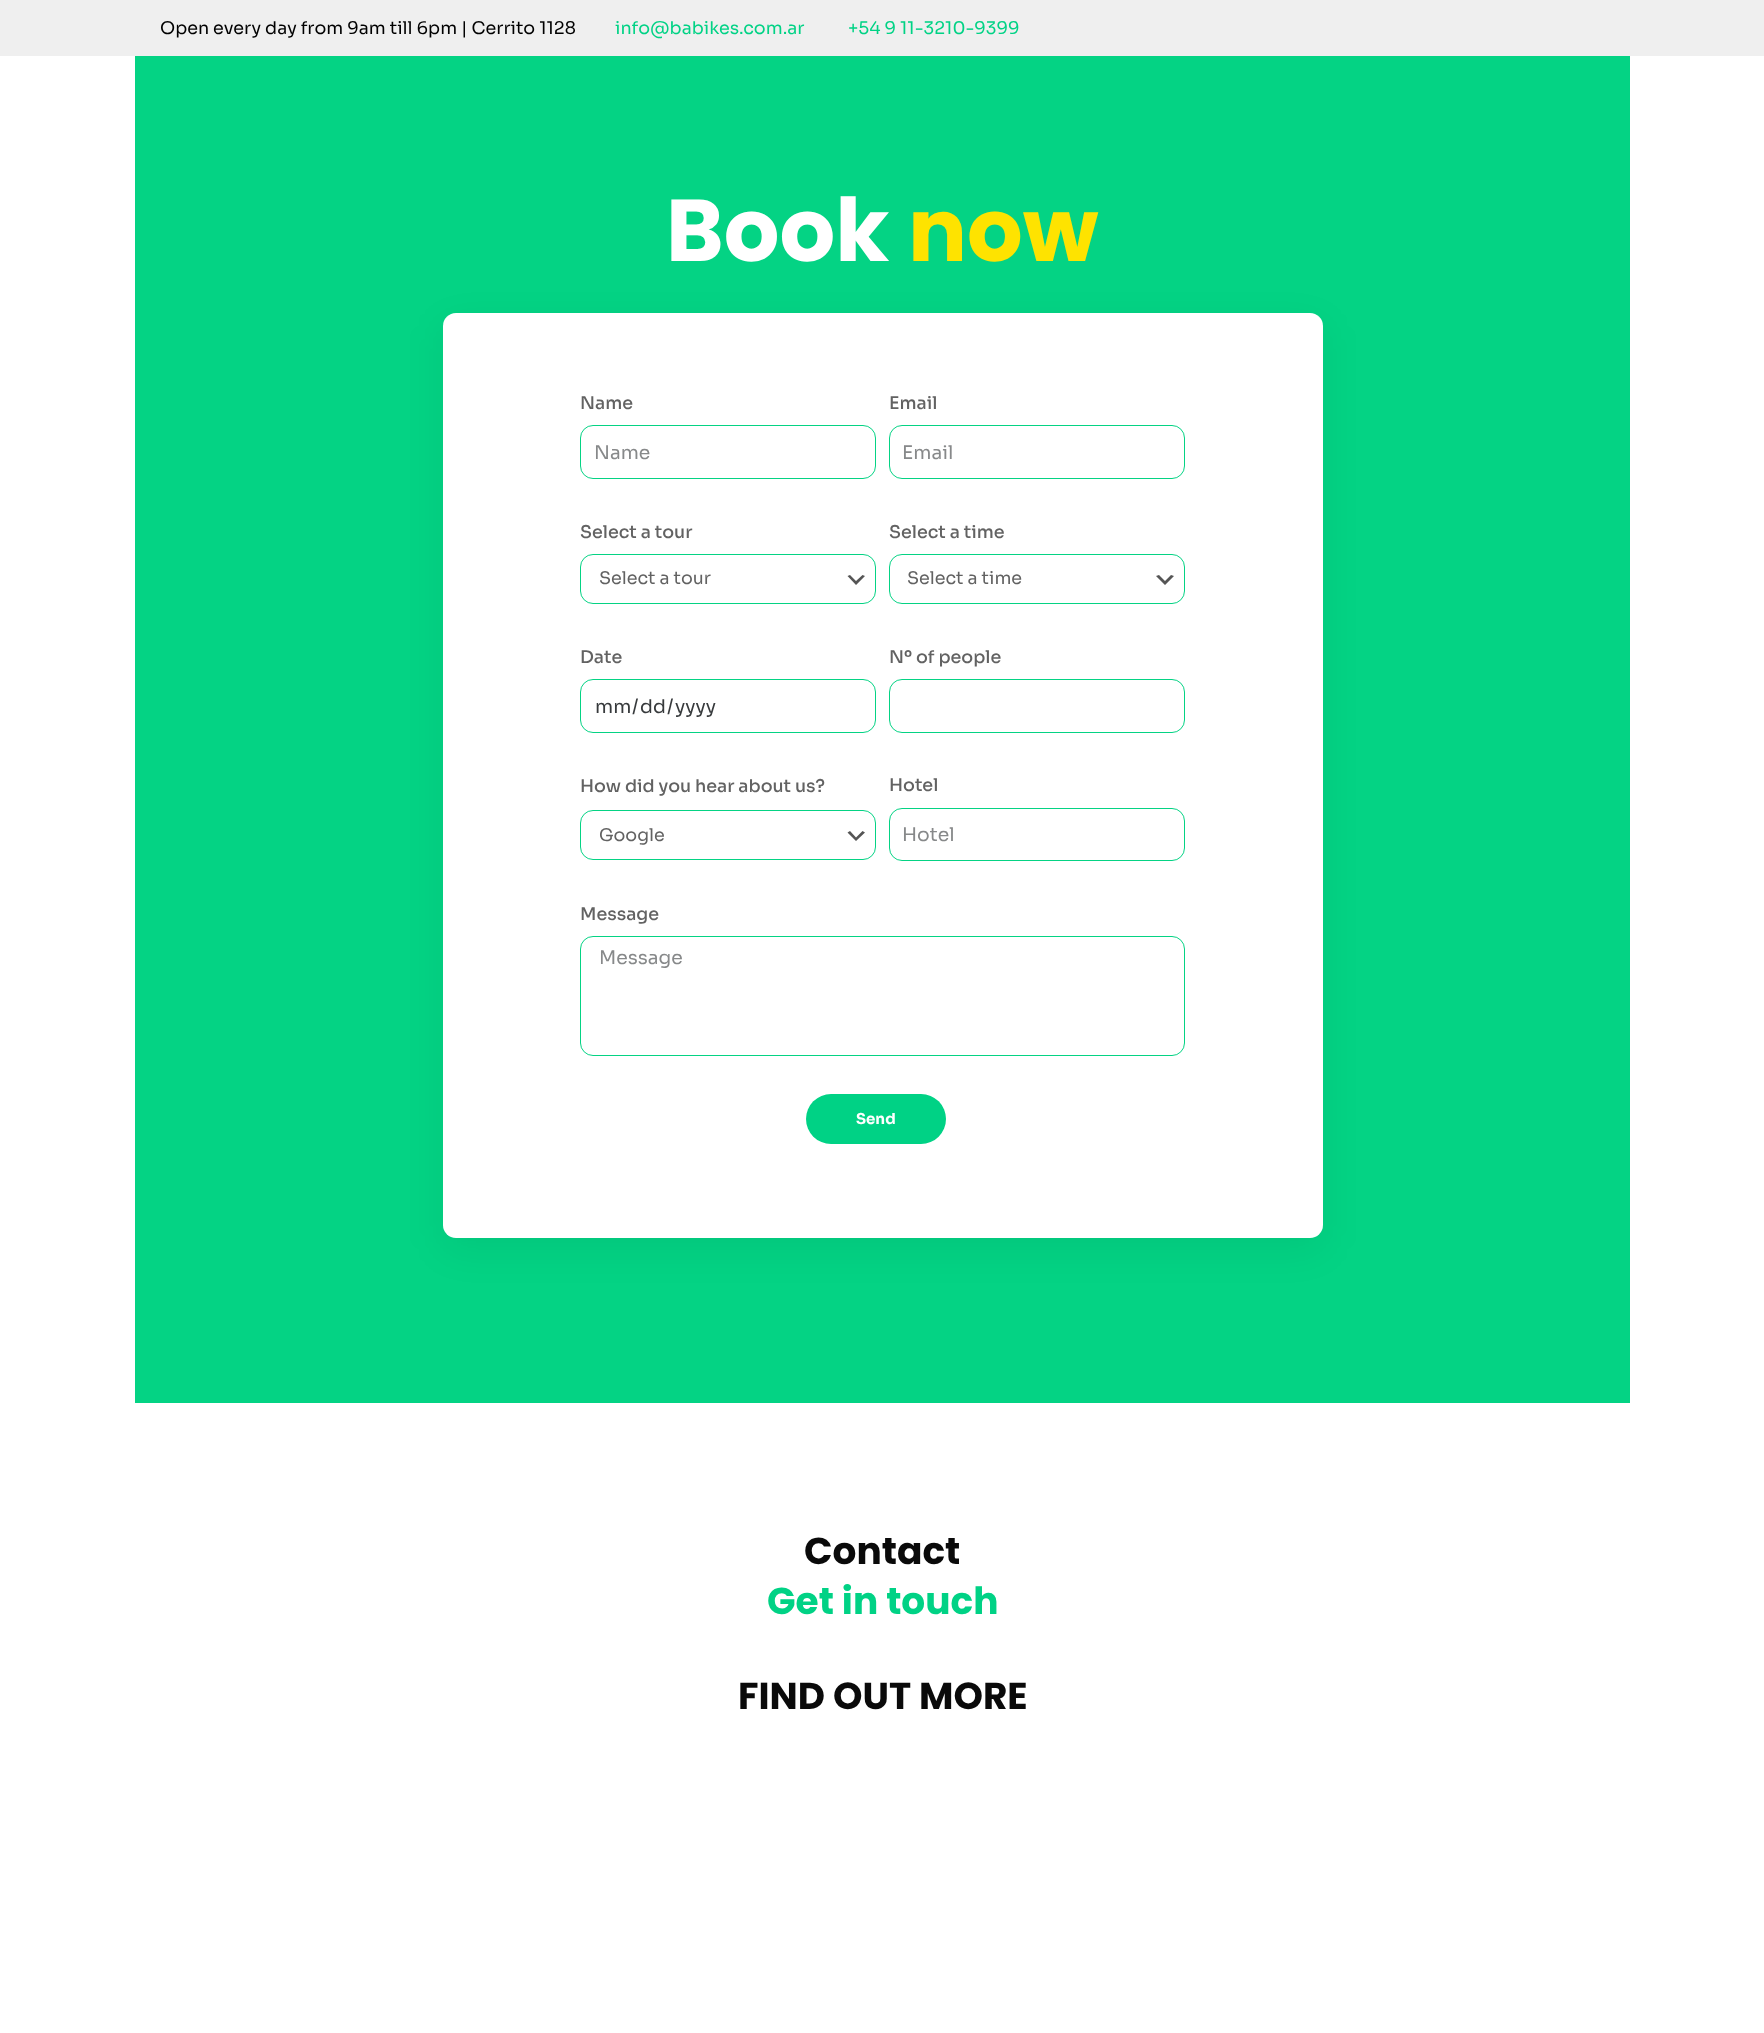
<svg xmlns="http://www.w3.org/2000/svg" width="1764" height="2033">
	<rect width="100%" height="100%" fill="#FFFFFF" />
	<rect x="0" y="0" width="1764" height="56" fill="#EFEFEF" />
	<text x="160" y="34" font-family="Sora" font-size="17.5" fill="#000000">Open every day from 9am till 6pm | Cerrito 1128</text>
	<g font-family="Sora" font-size="17.5" fill="#00D285">
		<text x="615" y="34">info@babikes.com.ar</text>
		<text x="848" y="34">+54 9 11-3210-9399</text>
	</g>
	<rect x="135" y="56" width="1495" height="1347" fill="#04D384" />
	<text x="666" y="261" font-family="Poppins" font-size="87.5" font-weight="700" fill="#FFFFFF">Book</text>
	<text x="908" y="261" font-family="Poppins" font-size="87.5" font-weight="700" fill="#FEE300">now</text>
	<rect x="443" y="325" width="880" height="925" rx="13" fill="#000000" fill-opacity="0.06" filter="blur(19px)" />
	<rect x="443" y="313" width="880" height="925" rx="13" fill="#FFFFFF" />
	<text x="580" y="409" font-family="Sora" font-size="17.5" font-weight="500" fill="#626262">Name</text>
	<rect x="580.5" y="425.5" width="295" height="53" rx="12.5" fill="none" stroke="#04D384" />
	<text x="594" y="459" font-family="Sora" font-size="18.75" fill="#87898A">Name</text>
	<text x="889" y="409" font-family="Sora" font-size="17.5" font-weight="500" fill="#626262">Email</text>
	<rect x="889.5" y="425.5" width="295" height="53" rx="12.5" fill="none" stroke="#04D384" />
	<text x="902" y="459" font-family="Sora" font-size="18.75" fill="#87898A">Email</text>
	<text x="580" y="538" font-family="Sora" font-size="17.5" font-weight="500" fill="#626262">Select a tour</text>
	<path d="M850 575L856 581L862.5 575L865 576L856 585L847.5 576Z" fill="#555555" />
	<rect x="580.5" y="554.5" width="295" height="49" rx="12.5" fill="none" stroke="#04D384" />
	<text x="599" y="584" font-family="Sora" font-size="17.5" fill="#626262">Select a tour</text>
	<text x="889" y="538" font-family="Sora" font-size="17.5" font-weight="500" fill="#626262">Select a time</text>
	<path d="M1159 575L1165 581L1171 575L1174 576L1165 585L1156 576Z" fill="#555555" />
	<rect x="889.5" y="554.5" width="295" height="49" rx="12.5" fill="none" stroke="#04D384" />
	<text x="907" y="584" font-family="Sora" font-size="17.5" fill="#626262">Select a time</text>
	<text x="580" y="663" font-family="Sora" font-size="17.5" font-weight="500" fill="#626262">Date</text>
	<rect x="580.5" y="679.5" width="295" height="53" rx="12.5" fill="none" stroke="#04D384" />
	<g font-family="Sora" font-size="18.75" fill="#373A3C">
		<text x="595" y="713">mm</text>
		<text x="632" y="713">/</text>
		<text x="640" y="713">dd</text>
		<text x="667" y="713">/</text>
		<text x="675" y="713">yyyy</text>
	</g>
	<text x="889" y="663" font-family="Sora" font-size="17.5" font-weight="500" fill="#626262">Nº of people</text>
	<rect x="889.5" y="679.5" width="295" height="53" rx="12.5" fill="none" stroke="#04D384" />
	<text x="580" y="792" font-family="Sora" font-size="17.5" font-weight="500" fill="#626262">How did you hear about us?</text>
	<path d="M850 831L856 837.5L862.5 831L865 832.5L856 841L847.5 832.5Z" fill="#555555" />
	<rect x="580.5" y="810.5" width="295" height="49" rx="12.5" fill="none" stroke="#04D384" />
	<text x="599" y="841" font-family="Sora" font-size="17.5" fill="#626262">Google</text>
	<text x="889" y="791" font-family="Sora" font-size="17.5" font-weight="500" fill="#626262">Hotel</text>
	<rect x="889.5" y="808.5" width="295" height="52" rx="12.5" fill="none" stroke="#04D384" />
	<text x="902" y="841" font-family="Sora" font-size="18.75" fill="#87898A">Hotel</text>
	<text x="580" y="920" font-family="Sora" font-size="17.5" font-weight="500" fill="#626262">Message</text>
	<rect x="580.5" y="936.5" width="604" height="119" rx="12.5" fill="none" stroke="#04D384" />
	<text x="599" y="964" font-family="Sora" font-size="18.75" fill="#87898A">Message</text>
	<rect x="806" y="1094" width="140" height="50" rx="25" fill="#00D285" />
	<text x="856" y="1124" font-family="Sora" font-size="15" font-weight="700" fill="#FFFFFF">Send</text>
	<text x="804" y="1564" font-family="Poppins" font-size="37.5" font-weight="700" fill="#0A0A0A">Contact</text>
	<text x="767" y="1614" font-family="Poppins" font-size="37.5" font-weight="700" fill="#00D285">Get in touch</text>
	<text x="738" y="1709" font-family="Poppins" font-size="37.5" font-weight="700" fill="#0A0A0A">FIND OUT MORE</text>
</svg>
